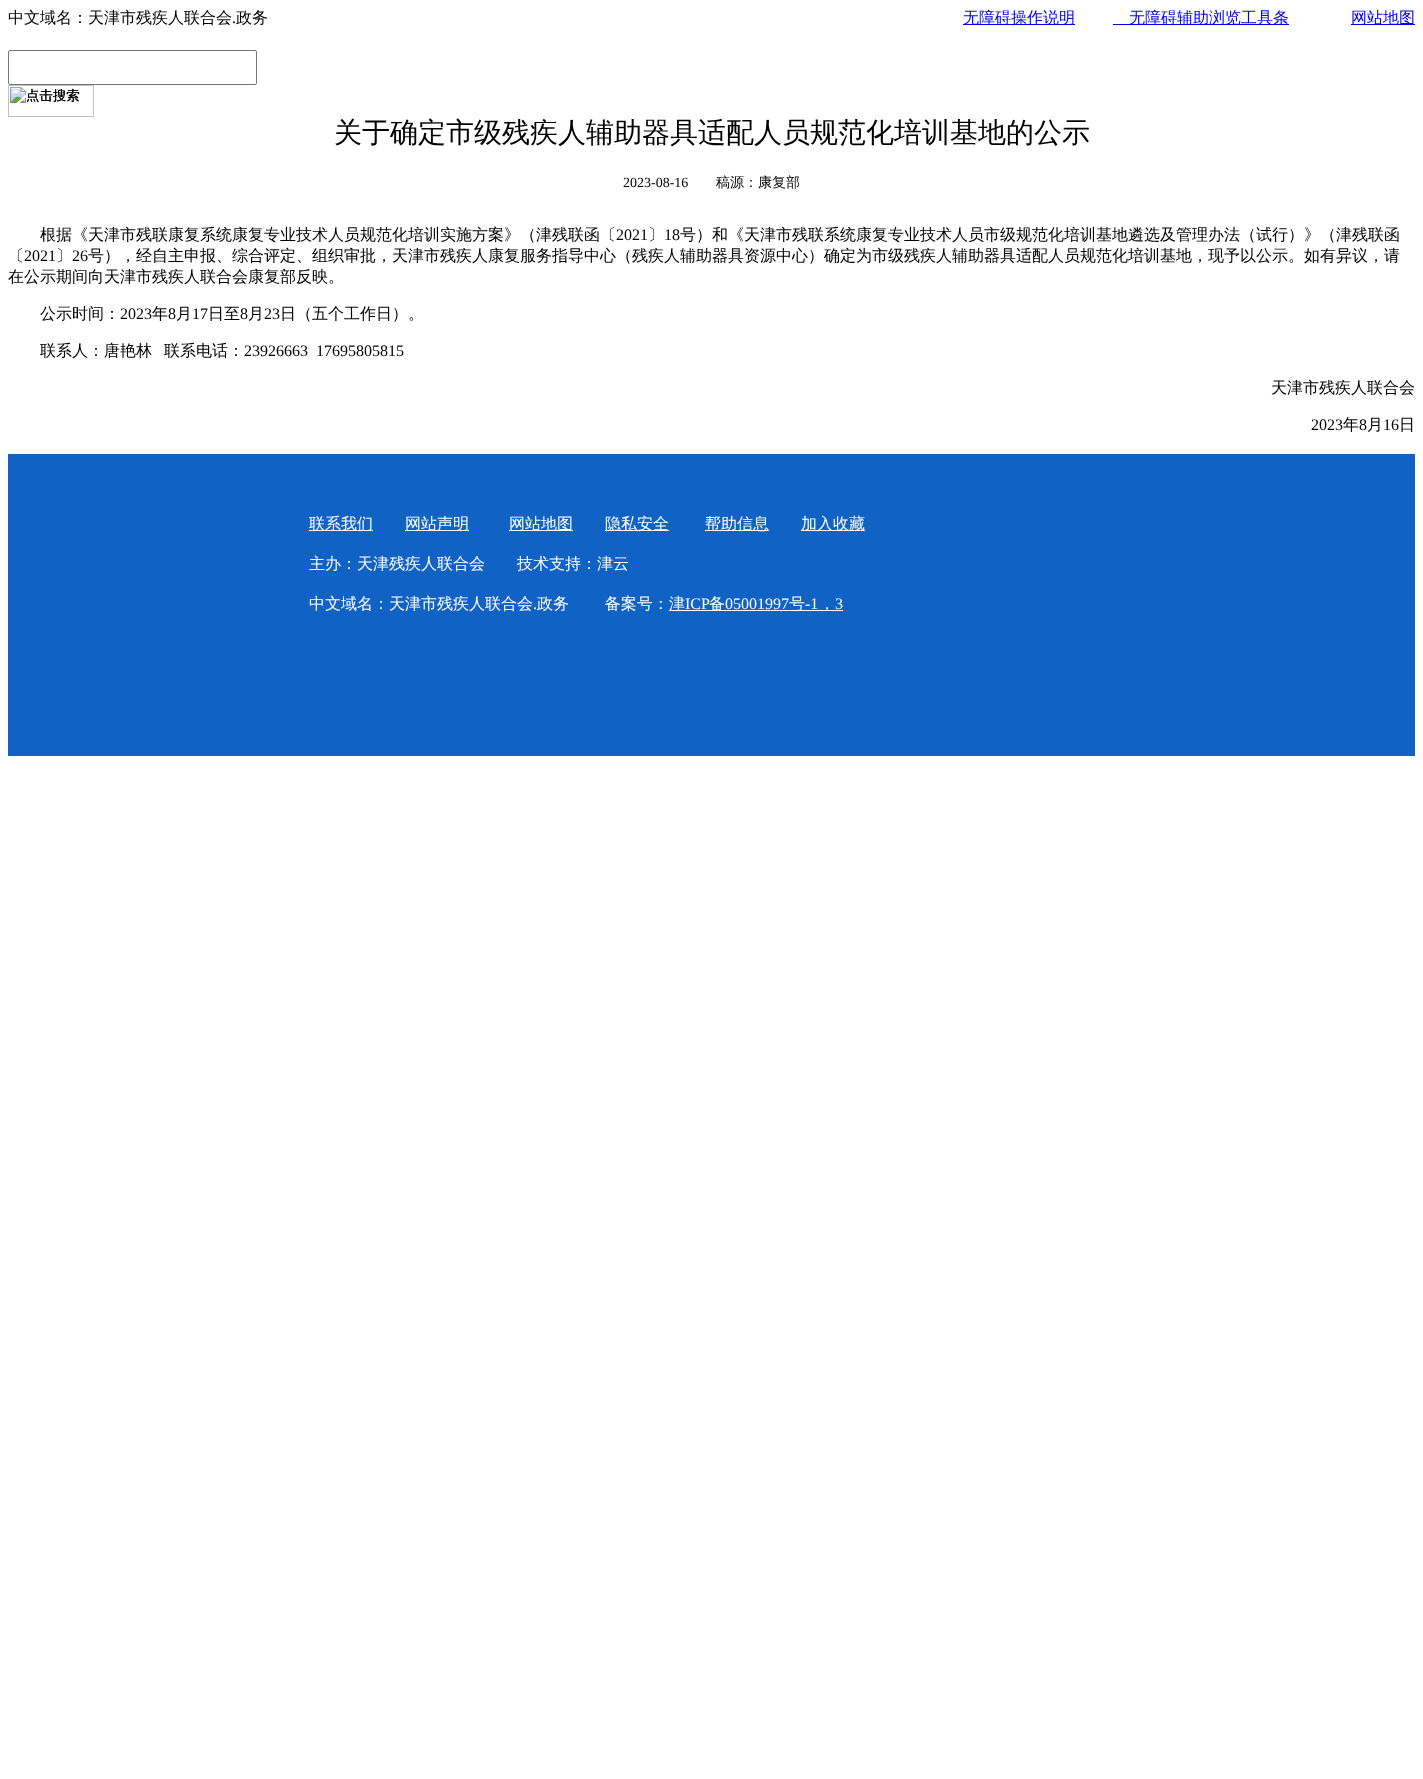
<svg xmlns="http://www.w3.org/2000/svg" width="1423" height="1779">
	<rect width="100%" height="100%" fill="#FFFFFF" />
	<text x="8" y="23" font-family="WenQuanYi Zen Hei" font-size="16" font-weight="500" fill="#000000">中文域名：天津市残疾人联合会</text>
	<text x="232" y="23" font-family="Liberation Serif" font-size="16" fill="#000000">.</text>
	<text x="236" y="23" font-family="WenQuanYi Zen Hei" font-size="16" font-weight="500" fill="#000000">政务</text>
	<rect x="963" y="24" width="112" height="1" fill="#0000EE" />
	<text x="963" y="23" font-family="WenQuanYi Zen Hei" font-size="16" font-weight="500" fill="#0000EE">无障碍操作说明</text>
	<rect x="1113" y="24" width="176" height="1" fill="#0000EE" />
	<text x="1129" y="23" font-family="WenQuanYi Zen Hei" font-size="16" font-weight="500" fill="#0000EE">无障碍辅助浏览工具条</text>
	<rect x="1351" y="24" width="64" height="1" fill="#0000EE" />
	<text x="1351" y="23" font-family="WenQuanYi Zen Hei" font-size="16" font-weight="500" fill="#0000EE">网站地图</text>
	<rect x="8.5" y="50.5" width="248" height="34" rx="1.5" fill="none" stroke="#767676" />
	<image x="8" y="85" width="86" height="32" href="assets/img1.png" />
	<text x="26" y="100" font-family="WenQuanYi Zen Hei" font-size="13.5" font-weight="500" fill="#000000">点击搜索</text>
	<text x="334" y="142" font-family="WenQuanYi Zen Hei" font-size="28" font-weight="500" fill="#000000">关于确定市级残疾人辅助器具适配人员规范化培训基地的公示</text>
	<text x="623" y="187" font-family="Liberation Serif" font-size="14" fill="#000000">2023-08-16</text>
	<text x="716" y="187" font-family="WenQuanYi Zen Hei" font-size="14" font-weight="500" fill="#000000">稿源：康复部</text>
	<text x="40" y="240" font-family="WenQuanYi Zen Hei" font-size="16" font-weight="500" fill="#000000">根据《天津市残联康复系统康复专业技术人员规范化培训实施方案》（津残联函〔</text>
	<text x="616" y="240" font-family="Liberation Serif" font-size="16" fill="#000000">2021</text>
	<text x="648" y="240" font-family="WenQuanYi Zen Hei" font-size="16" font-weight="500" fill="#000000">〕</text>
	<text x="664" y="240" font-family="Liberation Serif" font-size="16" fill="#000000">18</text>
	<g font-family="WenQuanYi Zen Hei" font-size="16" font-weight="500" fill="#000000">
		<text x="680" y="240">号）和《天津市残联系统康复专业技术人员市级规范化培训基地遴选及管理办法（试行）》（津残联函</text>
		<text x="8" y="261">〔</text>
	</g>
	<text x="24" y="261" font-family="Liberation Serif" font-size="16" fill="#000000">2021</text>
	<text x="56" y="261" font-family="WenQuanYi Zen Hei" font-size="16" font-weight="500" fill="#000000">〕</text>
	<text x="72" y="261" font-family="Liberation Serif" font-size="16" fill="#000000">26</text>
	<g font-family="WenQuanYi Zen Hei" font-size="16" font-weight="500" fill="#000000">
		<text x="88" y="261">号），经自主申报、综合评定、组织审批，天津市残疾人康复服务指导中心（残疾人辅助器具资源中心）确定为市级残疾人辅助器具适配人员规范化培训基地，现予以公示。如有异议，请</text>
		<text x="8" y="282">在公示期间向天津市残疾人联合会康复部反映。</text>
		<text x="40" y="319">公示时间：</text>
	</g>
	<text x="120" y="319" font-family="Liberation Serif" font-size="16" fill="#000000">2023</text>
	<text x="152" y="319" font-family="WenQuanYi Zen Hei" font-size="16" font-weight="500" fill="#000000">年</text>
	<text x="168" y="319" font-family="Liberation Serif" font-size="16" fill="#000000">8</text>
	<text x="176" y="319" font-family="WenQuanYi Zen Hei" font-size="16" font-weight="500" fill="#000000">月</text>
	<text x="192" y="319" font-family="Liberation Serif" font-size="16" fill="#000000">17</text>
	<text x="208" y="319" font-family="WenQuanYi Zen Hei" font-size="16" font-weight="500" fill="#000000">日至</text>
	<text x="240" y="319" font-family="Liberation Serif" font-size="16" fill="#000000">8</text>
	<text x="248" y="319" font-family="WenQuanYi Zen Hei" font-size="16" font-weight="500" fill="#000000">月</text>
	<text x="264" y="319" font-family="Liberation Serif" font-size="16" fill="#000000">23</text>
	<g font-family="WenQuanYi Zen Hei" font-size="16" font-weight="500" fill="#000000">
		<text x="280" y="319">日（五个工作日）。</text>
		<text x="40" y="356">联系人：唐艳林</text>
		<text x="164" y="356">联系电话：</text>
	</g>
	<text x="244" y="356" font-family="Liberation Serif" font-size="16" fill="#000000" xml:space="preserve">23926663  17695805815</text>
	<text x="1271" y="393" font-family="WenQuanYi Zen Hei" font-size="16" font-weight="500" fill="#000000">天津市残疾人联合会</text>
	<text x="1311" y="430" font-family="Liberation Serif" font-size="16" fill="#000000">2023</text>
	<text x="1343" y="430" font-family="WenQuanYi Zen Hei" font-size="16" font-weight="500" fill="#000000">年</text>
	<text x="1359" y="430" font-family="Liberation Serif" font-size="16" fill="#000000">8</text>
	<text x="1367" y="430" font-family="WenQuanYi Zen Hei" font-size="16" font-weight="500" fill="#000000">月</text>
	<text x="1383" y="430" font-family="Liberation Serif" font-size="16" fill="#000000">16</text>
	<text x="1399" y="430" font-family="WenQuanYi Zen Hei" font-size="16" font-weight="500" fill="#000000">日</text>
	<rect x="8" y="454" width="1407" height="302" fill="#1162C5" />
	<rect x="309" y="530" width="64" height="1" fill="#FFFFFF" />
	<text x="309" y="529" font-family="WenQuanYi Zen Hei" font-size="16" font-weight="500" fill="#FFFFFF">联系我们</text>
	<rect x="405" y="530" width="64" height="1" fill="#FFFFFF" />
	<text x="405" y="529" font-family="WenQuanYi Zen Hei" font-size="16" font-weight="500" fill="#FFFFFF">网站声明</text>
	<rect x="509" y="530" width="64" height="1" fill="#FFFFFF" />
	<text x="509" y="529" font-family="WenQuanYi Zen Hei" font-size="16" font-weight="500" fill="#FFFFFF">网站地图</text>
	<rect x="605" y="530" width="64" height="1" fill="#FFFFFF" />
	<text x="605" y="529" font-family="WenQuanYi Zen Hei" font-size="16" font-weight="500" fill="#FFFFFF">隐私安全</text>
	<rect x="705" y="530" width="64" height="1" fill="#FFFFFF" />
	<text x="705" y="529" font-family="WenQuanYi Zen Hei" font-size="16" font-weight="500" fill="#FFFFFF">帮助信息</text>
	<rect x="801" y="530" width="64" height="1" fill="#FFFFFF" />
	<g font-family="WenQuanYi Zen Hei" font-size="16" font-weight="500" fill="#FFFFFF">
		<text x="801" y="529">加入收藏</text>
		<text x="309" y="569">主办：天津残疾人联合会　　技术支持：津云</text>
		<text x="309" y="609">中文域名：天津市残疾人联合会</text>
	</g>
	<text x="533" y="609" font-family="Liberation Serif" font-size="16" fill="#FFFFFF">.</text>
	<text x="537" y="609" word-spacing="-1" font-family="WenQuanYi Zen Hei" font-size="16" font-weight="500" fill="#FFFFFF">政务 　　备案号：</text>
	<rect x="669" y="610" width="174" height="1" fill="#FFFFFF" />
	<text x="669" y="609" font-family="WenQuanYi Zen Hei" font-size="16" font-weight="500" fill="#FFFFFF">津</text>
	<text x="685" y="609" font-family="Liberation Serif" font-size="16" fill="#FFFFFF">ICP</text>
	<text x="709" y="609" font-family="WenQuanYi Zen Hei" font-size="16" font-weight="500" fill="#FFFFFF">备</text>
	<text x="725" y="609" font-family="Liberation Serif" font-size="16" fill="#FFFFFF">05001997</text>
	<text x="789" y="609" font-family="WenQuanYi Zen Hei" font-size="16" font-weight="500" fill="#FFFFFF">号</text>
	<text x="805" y="609" font-family="Liberation Serif" font-size="16" fill="#FFFFFF">-1</text>
	<text x="819" y="609" font-family="WenQuanYi Zen Hei" font-size="16" font-weight="500" fill="#FFFFFF">，</text>
	<text x="835" y="609" font-family="Liberation Serif" font-size="16" fill="#FFFFFF">3</text>
</svg>
